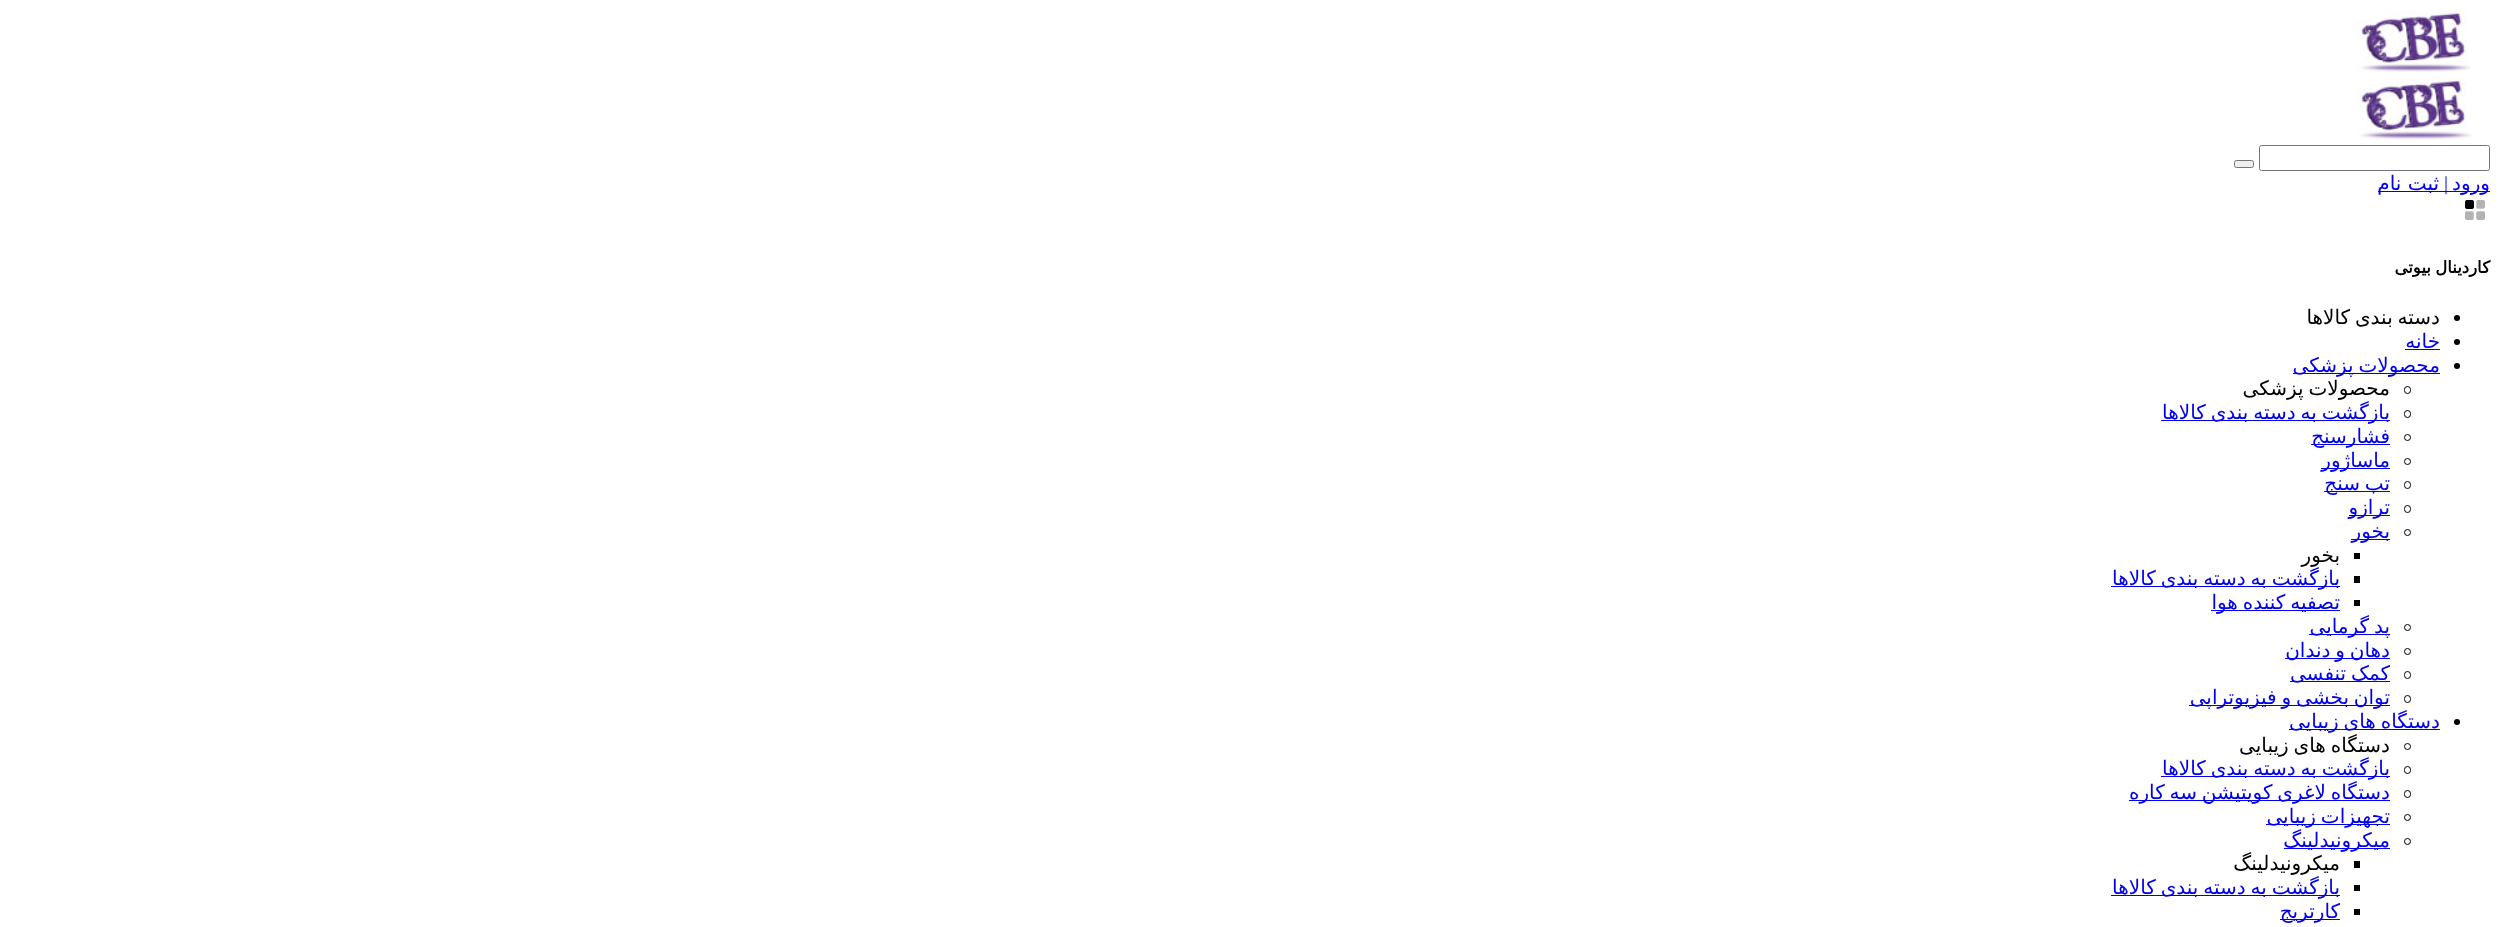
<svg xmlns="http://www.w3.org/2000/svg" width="2500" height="927">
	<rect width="100%" height="100%" fill="#FFFFFF" />
	<image x="2356" y="10" width="115" height="63" href="assets/img1.png" />
	<image x="2356" y="77" width="116" height="63" href="assets/img2.png" />
	<rect x="2259.5" y="145.5" width="230" height="25" rx="2" fill="none" stroke="#767676" />
	<rect x="2234.5" y="160.5" width="19" height="7" rx="2" fill="#EFEFEF" stroke="#767676" />
	<rect x="2378" y="191" width="112" height="1" fill="#0000EE" />
	<text x="2490" y="190" font-family="DejaVu Sans" font-size="20" direction="rtl" fill="#0000EE">ورود</text>
	<text x="2448" y="190" font-family="Liberation Serif" font-size="20" direction="rtl" fill="#0000EE">|</text>
	<text x="2439" y="190" font-family="DejaVu Sans" font-size="20" direction="rtl" fill="#0000EE">ثبت نام</text>
	<image x="2465" y="200" width="20" height="20" href="assets/img3.png" />
	<text x="2490" y="273" word-spacing="-1" font-family="DejaVu Sans" font-size="16.5" font-weight="700" direction="rtl" fill="#000000">کاردینال بیوتی</text>
	<circle cx="2457" cy="318" r="3" fill="#000000" />
	<text x="2440" y="324" word-spacing="-1.5" font-family="DejaVu Sans" font-size="20" direction="rtl" fill="#000000">دسته بندی کالاها</text>
	<circle cx="2457" cy="342" r="3" fill="#000000" />
	<text x="2440" y="348" font-family="DejaVu Sans" font-size="20" direction="rtl" fill="#0000EE">خانه</text>
	<rect x="2405" y="349" width="35" height="1" fill="#0000EE" />
	<circle cx="2457" cy="366" r="3" fill="#000000" />
	<rect x="2293" y="373" width="147" height="1" fill="#0000EE" />
	<text x="2440" y="372" word-spacing="-1.5" font-family="DejaVu Sans" font-size="20" direction="rtl" fill="#0000EE">محصولات پزشکی</text>
	<rect x="2404.5" y="386.5" width="6" height="7" rx="3" fill="none" stroke="#000000" />
	<text x="2390" y="395" word-spacing="-1.5" font-family="DejaVu Sans" font-size="20" direction="rtl" fill="#000000">محصولات پزشکی</text>
	<rect x="2404.5" y="410.5" width="6" height="7" rx="3" fill="none" stroke="#000000" />
	<rect x="2161" y="420" width="229" height="1" fill="#0000EE" />
	<text x="2390" y="419" word-spacing="-1.5" font-family="DejaVu Sans" font-size="20" direction="rtl" fill="#0000EE">بازگشت به دسته بندی کالاها</text>
	<circle cx="2407.5" cy="437.5" r="3" fill="none" stroke="#000000" />
	<rect x="2311" y="444" width="79" height="1" fill="#0000EE" />
	<text x="2390" y="443" font-family="DejaVu Sans" font-size="20" direction="rtl" fill="#0000EE">فشارسنج</text>
	<circle cx="2407.5" cy="461.5" r="3" fill="none" stroke="#000000" />
	<rect x="2321" y="468" width="69" height="1" fill="#0000EE" />
	<text x="2390" y="467" font-family="DejaVu Sans" font-size="20" direction="rtl" fill="#0000EE">ماساژور</text>
	<rect x="2404.5" y="481.5" width="6" height="7" rx="3" fill="none" stroke="#000000" />
	<rect x="2324" y="491" width="66" height="1" fill="#0000EE" />
	<text x="2390" y="490" word-spacing="-1.5" font-family="DejaVu Sans" font-size="20" direction="rtl" fill="#0000EE">تب سنج</text>
	<rect x="2404.5" y="505.5" width="6" height="7" rx="3" fill="none" stroke="#000000" />
	<rect x="2349" y="515" width="41" height="1" fill="#0000EE" />
	<text x="2390" y="514" font-family="DejaVu Sans" font-size="20" direction="rtl" fill="#0000EE">ترازو</text>
	<circle cx="2407.5" cy="532.5" r="3" fill="none" stroke="#000000" />
	<rect x="2351" y="539" width="39" height="1" fill="#0000EE" />
	<text x="2390" y="538" font-family="DejaVu Sans" font-size="20" direction="rtl" fill="#0000EE">بخور</text>
	<rect x="2354" y="553" width="6" height="6" fill="#000000" />
	<text x="2340" y="562" font-family="DejaVu Sans" font-size="20" direction="rtl" fill="#000000">بخور</text>
	<rect x="2354" y="576" width="6" height="7" fill="#000000" />
	<rect x="2111" y="586" width="229" height="1" fill="#0000EE" />
	<text x="2340" y="585" word-spacing="-1.5" font-family="DejaVu Sans" font-size="20" direction="rtl" fill="#0000EE">بازگشت به دسته بندی کالاها</text>
	<rect x="2354" y="600" width="6" height="6" fill="#000000" />
	<rect x="2211" y="610" width="129" height="1" fill="#0000EE" />
	<text x="2340" y="609" word-spacing="-1.5" font-family="DejaVu Sans" font-size="20" direction="rtl" fill="#0000EE">تصفیه کننده هوا</text>
	<circle cx="2407.5" cy="627.5" r="3" fill="none" stroke="#000000" />
	<rect x="2309" y="634" width="81" height="1" fill="#0000EE" />
	<text x="2390" y="633" word-spacing="-1.5" font-family="DejaVu Sans" font-size="20" direction="rtl" fill="#0000EE">پد گرمایی</text>
	<circle cx="2407.5" cy="651.5" r="3" fill="none" stroke="#000000" />
	<rect x="2285" y="658" width="105" height="1" fill="#0000EE" />
	<text x="2390" y="657" word-spacing="-1.5" font-family="DejaVu Sans" font-size="20" direction="rtl" fill="#0000EE">دهان و دندان</text>
	<rect x="2404.5" y="671.5" width="6" height="7" rx="3" fill="none" stroke="#000000" />
	<rect x="2290" y="681" width="100" height="1" fill="#0000EE" />
	<text x="2390" y="680" word-spacing="-1.5" font-family="DejaVu Sans" font-size="20" direction="rtl" fill="#0000EE">کمک تنفسی</text>
	<rect x="2404.5" y="695.5" width="6" height="7" rx="3" fill="none" stroke="#000000" />
	<rect x="2189" y="705" width="201" height="1" fill="#0000EE" />
	<text x="2390" y="704" word-spacing="-1.5" font-family="DejaVu Sans" font-size="20" direction="rtl" fill="#0000EE">توان بخشی و فیزیوتراپی</text>
	<circle cx="2457" cy="722" r="3" fill="#000000" />
	<rect x="2289" y="729" width="151" height="1" fill="#0000EE" />
	<text x="2440" y="728" word-spacing="-1.5" font-family="DejaVu Sans" font-size="20" direction="rtl" fill="#0000EE">دستگاه های زیبایی</text>
	<circle cx="2407.5" cy="746.5" r="3" fill="none" stroke="#000000" />
	<text x="2390" y="752" word-spacing="-1.5" font-family="DejaVu Sans" font-size="20" direction="rtl" fill="#000000">دستگاه های زیبایی</text>
	<rect x="2404.5" y="766.5" width="6" height="7" rx="3" fill="none" stroke="#000000" />
	<rect x="2161" y="776" width="229" height="1" fill="#0000EE" />
	<text x="2390" y="775" word-spacing="-1.5" font-family="DejaVu Sans" font-size="20" direction="rtl" fill="#0000EE">بازگشت به دسته بندی کالاها</text>
	<rect x="2404.5" y="790.5" width="6" height="7" rx="3" fill="none" stroke="#000000" />
	<rect x="2129" y="800" width="261" height="1" fill="#0000EE" />
	<text x="2390" y="799" word-spacing="-1.5" font-family="DejaVu Sans" font-size="20" direction="rtl" fill="#0000EE">دستگاه لاغری کویتیشن سه کاره</text>
	<circle cx="2407.5" cy="817.5" r="3" fill="none" stroke="#000000" />
	<rect x="2266" y="824" width="124" height="1" fill="#0000EE" />
	<text x="2390" y="823" word-spacing="-1.5" font-family="DejaVu Sans" font-size="20" direction="rtl" fill="#0000EE">تجهیزات زیبایی</text>
	<circle cx="2407.5" cy="841.5" r="3" fill="none" stroke="#000000" />
	<rect x="2284" y="848" width="106" height="1" fill="#0000EE" />
	<text x="2390" y="847" font-family="DejaVu Sans" font-size="20" direction="rtl" fill="#0000EE">میکرونیدلینگ</text>
	<rect x="2354" y="861" width="6" height="7" fill="#000000" />
	<text x="2340" y="870" font-family="DejaVu Sans" font-size="20" direction="rtl" fill="#000000">میکرونیدلینگ</text>
	<rect x="2354" y="885" width="6" height="6" fill="#000000" />
	<rect x="2111" y="895" width="229" height="1" fill="#0000EE" />
	<text x="2340" y="894" word-spacing="-1.5" font-family="DejaVu Sans" font-size="20" direction="rtl" fill="#0000EE">بازگشت به دسته بندی کالاها</text>
	<rect x="2354" y="909" width="6" height="6" fill="#000000" />
	<rect x="2280" y="919" width="60" height="1" fill="#0000EE" />
	<text x="2340" y="918" font-family="DejaVu Sans" font-size="20" direction="rtl" fill="#0000EE">کارتریج</text>
</svg>
